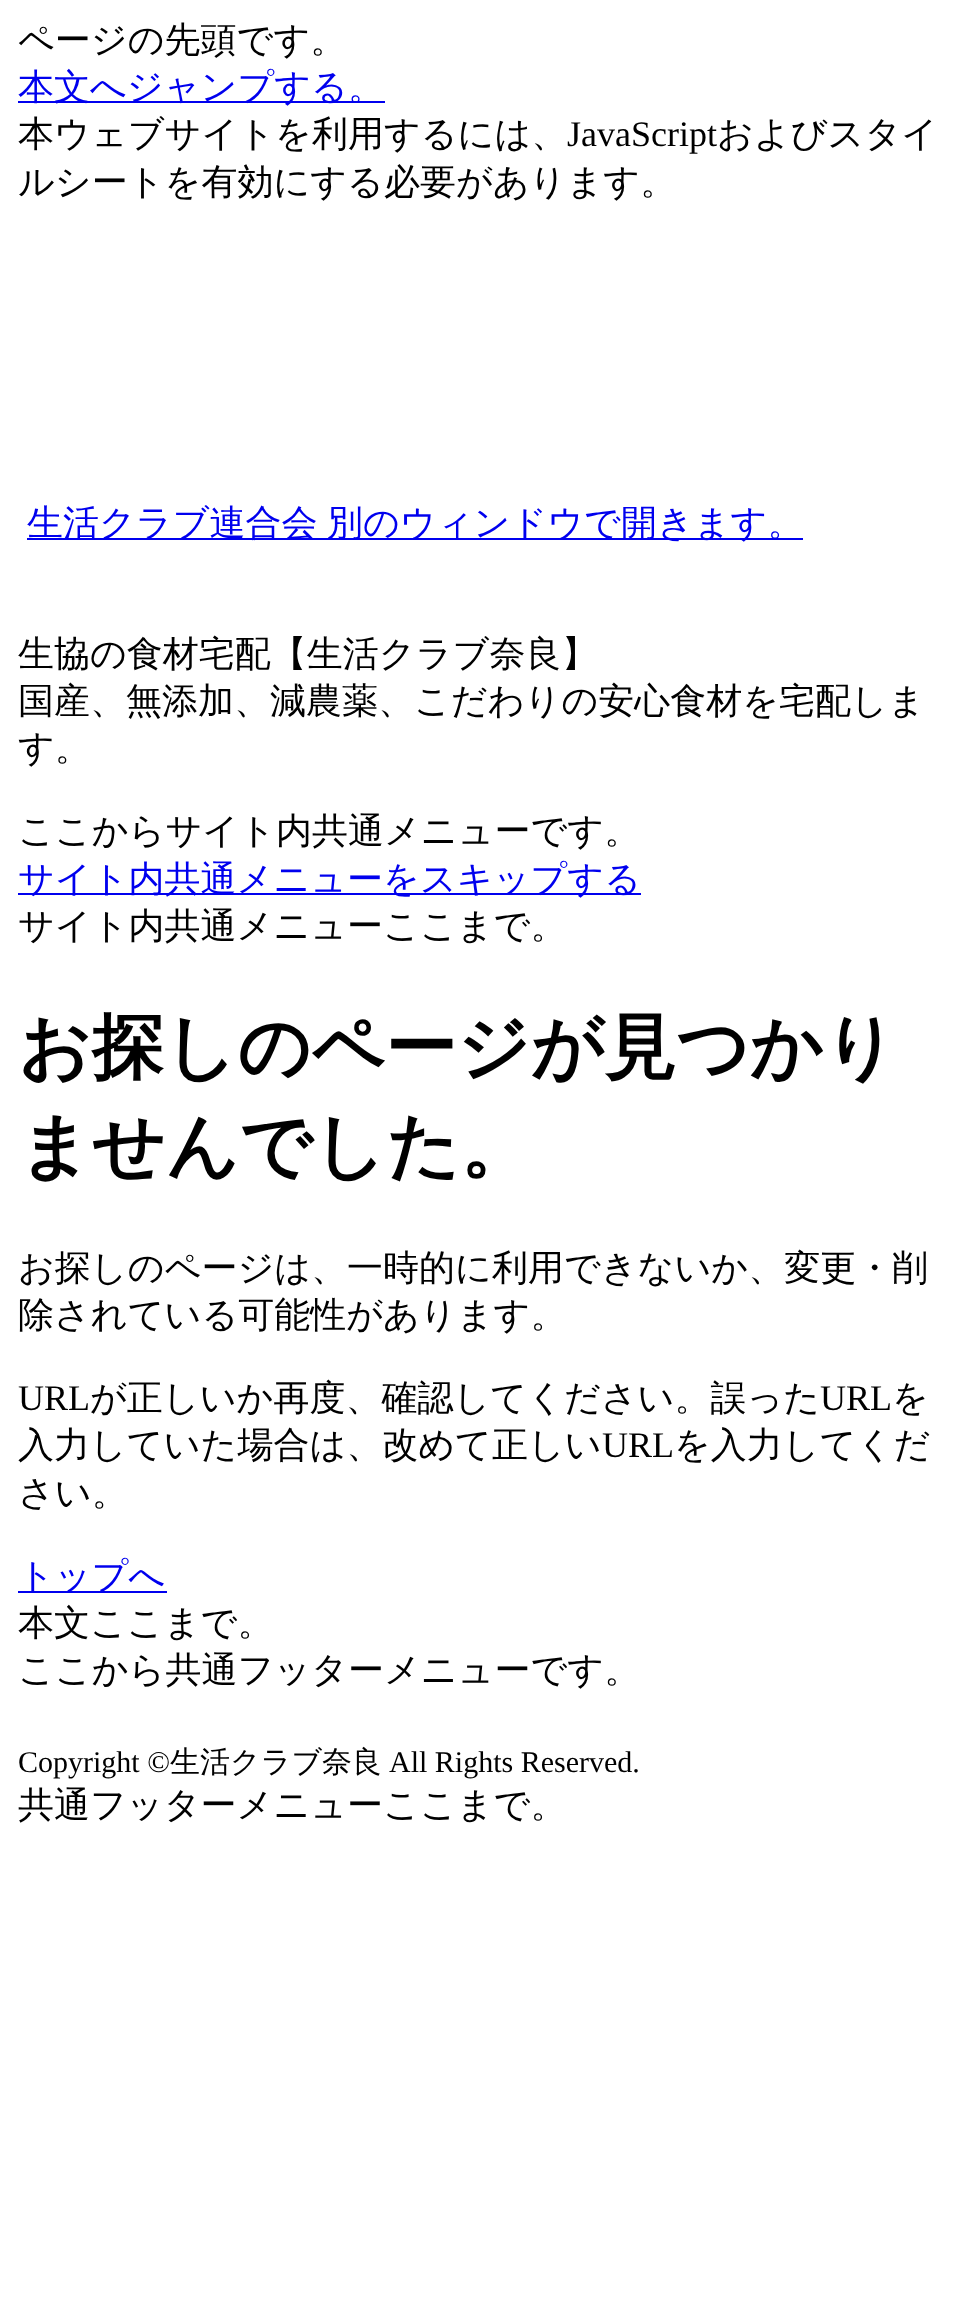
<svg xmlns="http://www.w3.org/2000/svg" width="973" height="2301">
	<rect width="100%" height="100%" fill="#FFFFFF" />
	<text x="18" y="52" font-family="WenQuanYi Zen Hei" font-size="36" font-weight="500" fill="#000000">ページの先頭です。</text>
	<rect x="18" y="101" width="367" height="2" fill="#0000EE" />
	<text x="18" y="99" font-family="WenQuanYi Zen Hei" font-size="36" font-weight="500" fill="#0000EE">本文へジャンプする。</text>
	<text x="18" y="146" font-family="WenQuanYi Zen Hei" font-size="36" font-weight="500" fill="#000000">本ウェブサイトを利用するには、</text>
	<text x="567" y="146" font-family="Liberation Serif" font-size="36" fill="#000000">JavaScript</text>
	<g font-family="WenQuanYi Zen Hei" font-size="36" font-weight="500" fill="#000000">
		<text x="717" y="146">およびスタイ</text>
		<text x="18" y="194">ルシートを有効にする必要があります。</text>
	</g>
	<rect x="27" y="538" width="776" height="2" fill="#0000EE" />
	<g font-family="WenQuanYi Zen Hei" font-size="36" font-weight="500" fill="#0000EE">
		<text x="27" y="535">生活クラブ連合会</text>
		<text x="327" y="535">別のウィンドウで開きます。</text>
	</g>
	<g font-family="WenQuanYi Zen Hei" font-size="36" font-weight="500" fill="#000000">
		<text x="18" y="666">生協の食材宅配【生活クラブ奈良】</text>
		<text x="18" y="713">国産、無添加、減農薬、こだわりの安心食材を宅配しま</text>
		<text x="18" y="760">す。</text>
		<text x="18" y="843">ここからサイト内共通メニューです。</text>
	</g>
	<rect x="18" y="893" width="623" height="2" fill="#0000EE" />
	<text x="18" y="891" font-family="WenQuanYi Zen Hei" font-size="36" font-weight="500" fill="#0000EE">サイト内共通メニューをスキップする</text>
	<text x="18" y="938" font-family="WenQuanYi Zen Hei" font-size="36" font-weight="500" fill="#000000">サイト内共通メニューここまで。</text>
	<g font-family="WenQuanYi Zen Hei" font-size="72" font-weight="700" fill="#000000">
		<text x="18" y="1072">お探しのページが見つかり</text>
		<text x="18" y="1171">ませんでした。</text>
	</g>
	<g font-family="WenQuanYi Zen Hei" font-size="36" font-weight="500" fill="#000000">
		<text x="18" y="1280">お探しのページは、一時的に利用できないか、変更・削</text>
		<text x="18" y="1327">除されている可能性があります。</text>
	</g>
	<text x="18" y="1410" font-family="Liberation Serif" font-size="36" fill="#000000">URL</text>
	<text x="90" y="1410" font-family="WenQuanYi Zen Hei" font-size="36" font-weight="500" fill="#000000">が正しいか再度、確認してください。誤った</text>
	<text x="820" y="1410" font-family="Liberation Serif" font-size="36" fill="#000000">URL</text>
	<g font-family="WenQuanYi Zen Hei" font-size="36" font-weight="500" fill="#000000">
		<text x="892" y="1410">を</text>
		<text x="18" y="1457">入力していた場合は、改めて正しい</text>
	</g>
	<text x="602" y="1457" font-family="Liberation Serif" font-size="36" fill="#000000">URL</text>
	<g font-family="WenQuanYi Zen Hei" font-size="36" font-weight="500" fill="#000000">
		<text x="674" y="1457">を入力してくだ</text>
		<text x="18" y="1505">さい。</text>
	</g>
	<rect x="18" y="1591" width="149" height="2" fill="#0000EE" />
	<text x="18" y="1588" font-family="WenQuanYi Zen Hei" font-size="36" font-weight="500" fill="#0000EE">トップへ</text>
	<g font-family="WenQuanYi Zen Hei" font-size="36" font-weight="500" fill="#000000">
		<text x="18" y="1635">本文ここまで。</text>
		<text x="18" y="1682">ここから共通フッターメニューです。</text>
	</g>
	<text x="18" y="1772" font-family="Liberation Serif" font-size="30" fill="#000000">Copyright ©</text>
	<text x="170" y="1772" font-family="WenQuanYi Zen Hei" font-size="30" font-weight="500" fill="#000000">生活クラブ奈良</text>
	<text x="389" y="1772" font-family="Liberation Serif" font-size="30" fill="#000000">All Rights Reserved.</text>
	<text x="18" y="1817" font-family="WenQuanYi Zen Hei" font-size="36" font-weight="500" fill="#000000">共通フッターメニューここまで。</text>
</svg>
